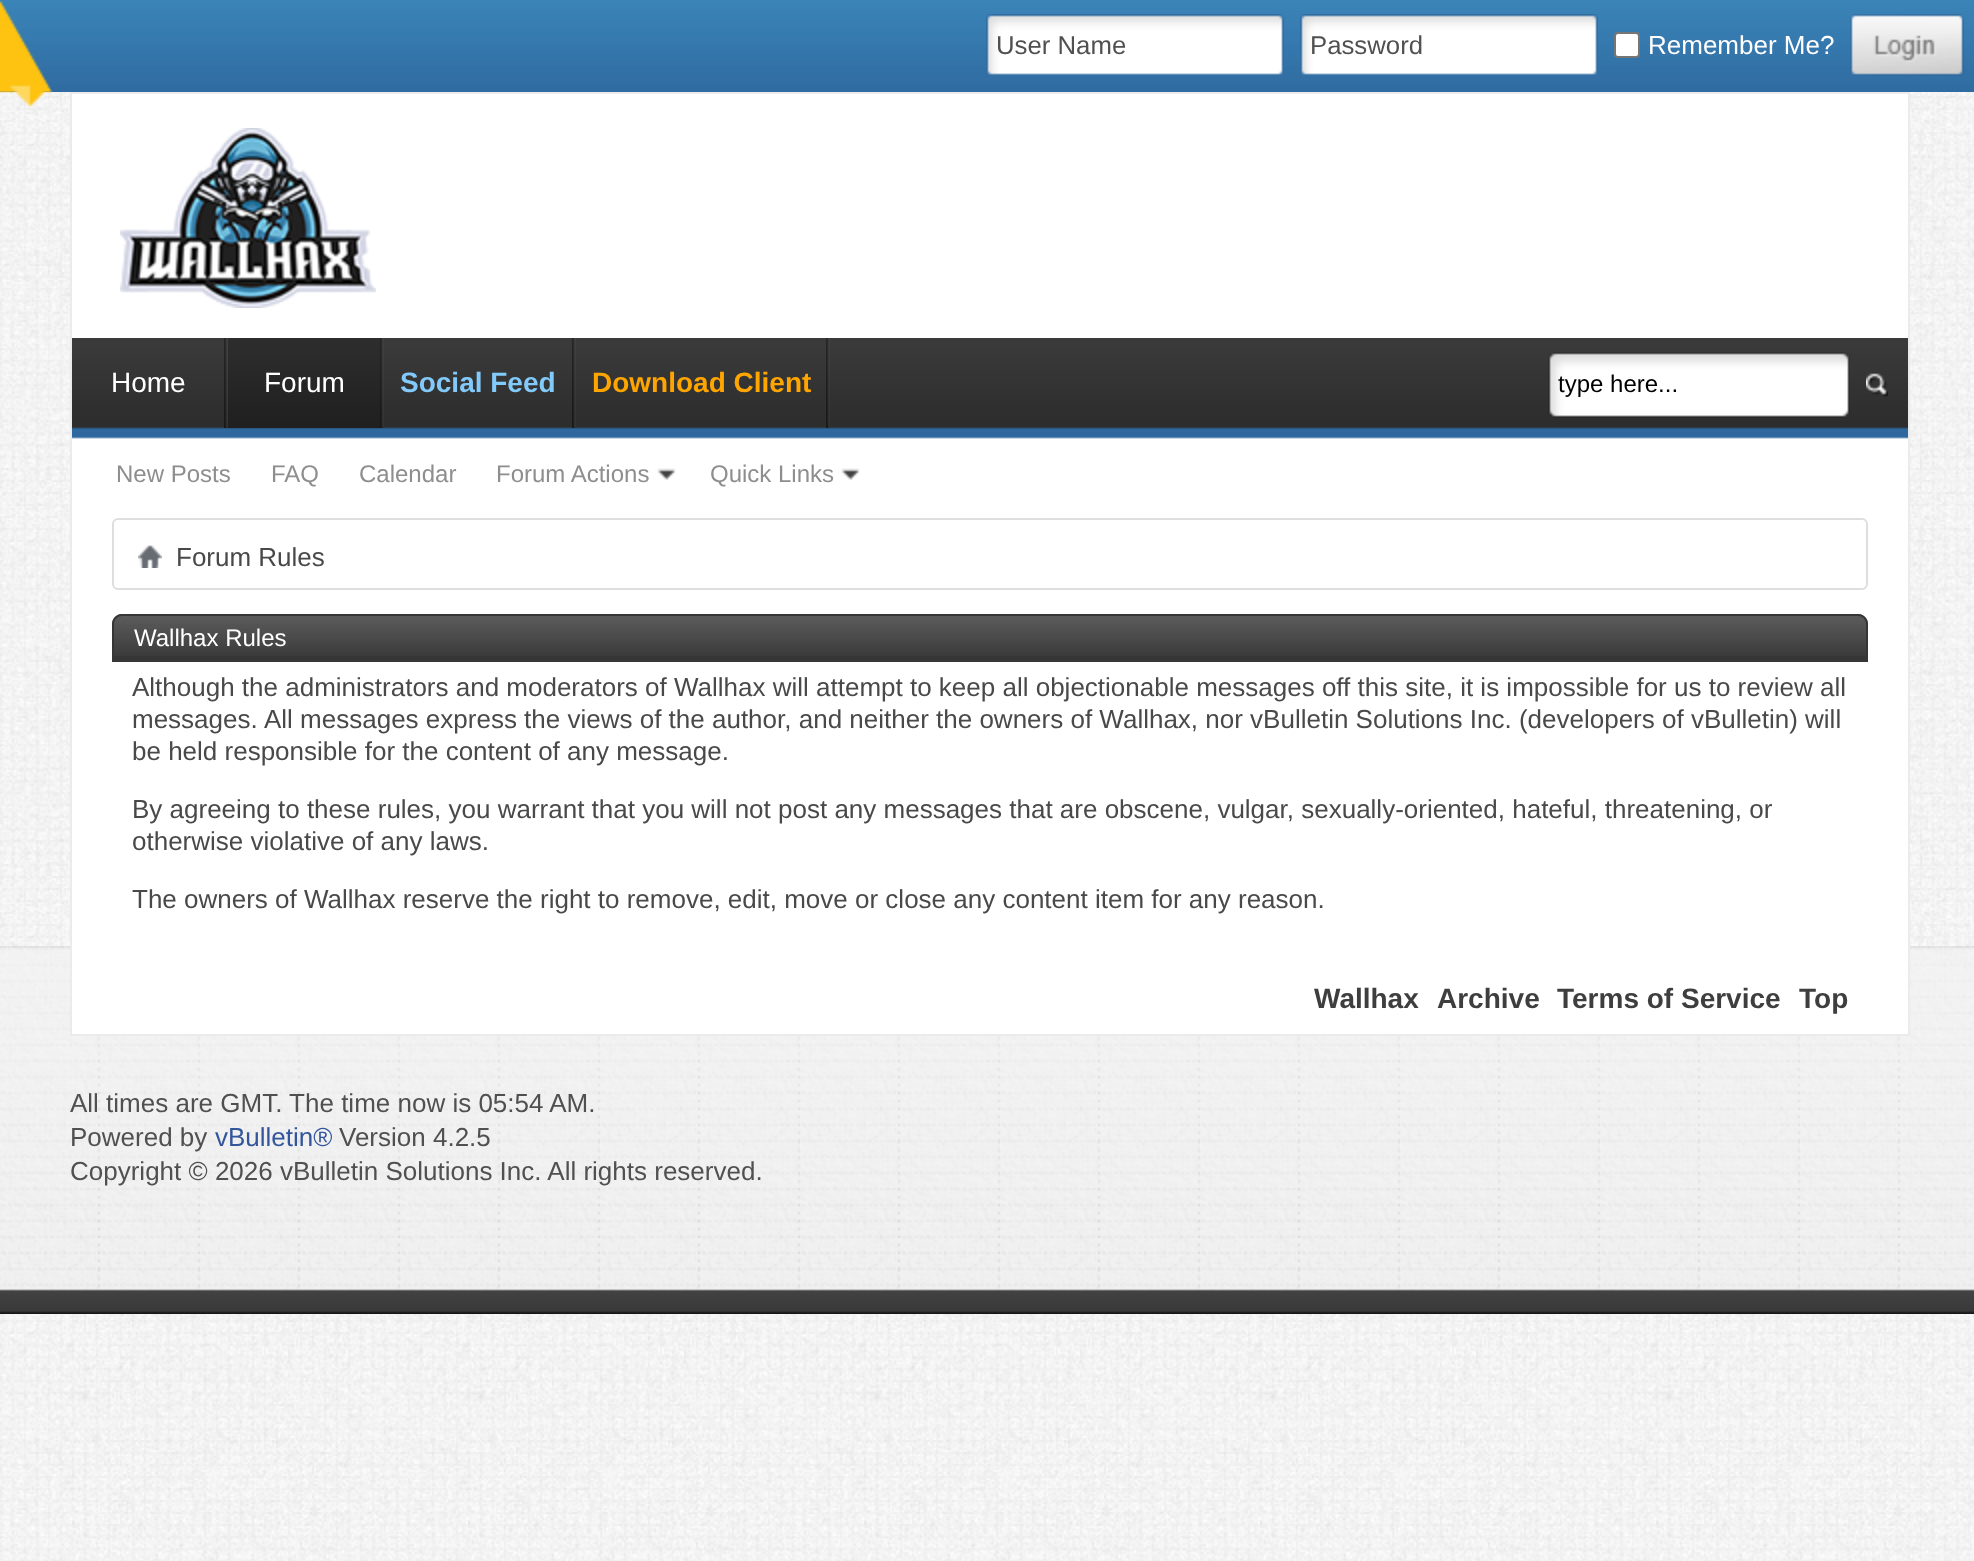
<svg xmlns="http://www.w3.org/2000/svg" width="1974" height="1561">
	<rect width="100%" height="100%" fill="#FFFFFF" />
	<image x="0" y="92" width="1974" height="1469" href="assets/img1.png" />
	<image x="0" y="946" width="1974" height="368" href="assets/img2.png" />
	<image x="0" y="0" width="1974" height="92" href="assets/img3.png" />
	<image x="0" y="0" width="52" height="107" href="assets/img4.png" />
	<image x="986" y="14" width="298" height="61" href="assets/img5.png" />
	<text x="996" y="54" font-family="Liberation Sans" font-size="25.75" fill="#515050">User Name</text>
	<image x="1300" y="14" width="298" height="61" href="assets/img5.png" />
	<text x="1310" y="54" font-family="Liberation Sans" font-size="25.75" fill="#515050">Password</text>
	<rect x="1615" y="33" width="24" height="24" rx="3" fill="#FFFFFF" stroke="#767676" stroke-width="2" />
	<text x="1648" y="54" font-family="Liberation Sans" font-size="26" fill="#FFFFFF">Remember Me?</text>
	<image x="1850" y="14" width="114" height="62" href="assets/img6.png" />
	<rect x="71" y="93" width="1838" height="942" fill="#FFFFFF" stroke="#EBEBEB" stroke-width="2" />
	<image x="120" y="128" width="256" height="180" href="assets/img7.png" />
	<image x="72" y="338" width="1836" height="101" href="assets/img8.png" />
	<image x="224" y="338" width="4" height="90" href="assets/img9.png" />
	<text x="111" y="392" font-family="Liberation Sans" font-size="28" fill="#FFFFFF">Home</text>
	<image x="380" y="338" width="4" height="90" href="assets/img9.png" />
	<image x="228" y="338" width="152" height="90" href="assets/img10.png" />
	<text x="264" y="392" font-family="Liberation Sans" font-size="28" fill="#FFFFFF">Forum</text>
	<image x="572" y="338" width="4" height="90" href="assets/img9.png" />
	<text x="400" y="392" font-family="Liberation Sans" font-size="28" font-weight="700" fill="#82CAFA">Social Feed</text>
	<image x="826" y="338" width="4" height="90" href="assets/img9.png" />
	<text x="592" y="392" font-family="Liberation Sans" font-size="28" font-weight="700" fill="#FFA500">Download Client</text>
	<g font-family="Liberation Sans" font-size="24" fill="#8E8E8E">
		<text x="116" y="482">New Posts</text>
		<text x="271" y="482">FAQ</text>
		<text x="359" y="482">Calendar</text>
		<text x="496" y="482">Forum Actions</text>
	</g>
	<image x="657" y="468" width="19" height="12" href="assets/img11.png" />
	<text x="710" y="482" font-family="Liberation Sans" font-size="24" fill="#8E8E8E">Quick Links</text>
	<image x="841" y="468" width="19" height="12" href="assets/img11.png" />
	<image x="1548" y="352" width="302" height="66" href="assets/img12.png" />
	<text x="1558" y="392" font-family="Liberation Sans" font-size="24" fill="#000000">type here...</text>
	<image x="1866" y="373" width="22" height="24" href="assets/img13.png" />
	<rect x="113" y="519" width="1754" height="70" rx="5" fill="none" stroke="#DEDEDE" stroke-width="2" />
	<image x="138" y="545" width="24" height="23" href="assets/img14.png" />
	<text x="176" y="566" font-family="Liberation Sans" font-size="26" fill="#494949">Forum Rules</text>
	<path d="M122 614H1858C1863.5 614 1868 618.5 1868 624V662H112V624C112 618.5 116.5 614 122 614Z" fill="#363636" />
	<image x="112" y="616" width="1756" height="40" href="assets/img15.png" />
	<path d="M122 615H1858C1863 615 1867 619 1867 624V661H113V624C113 619 117 615 122 615Z" fill="none" stroke="#363636" stroke-width="2" />
	<text x="134" y="646" font-family="Liberation Sans" font-size="24" fill="#FFFFFF">Wallhax Rules</text>
	<g font-family="Liberation Sans" font-size="26" fill="#494949">
		<text x="132" y="696">Although the administrators and moderators of Wallhax will attempt to keep all objectionable messages off this site, it is impossible for us to review all</text>
		<text x="132" y="728">messages.</text>
		<text x="264" y="728">All messages express the views of the author, and neither the owners of Wallhax, nor vBulletin Solutions Inc. (developers of vBulletin) will</text>
		<text x="132" y="760">be held responsible for the content of any message.</text>
		<text x="132" y="818">By agreeing to these rules, you warrant that you will not post any messages that are obscene, vulgar, sexually-oriented, hateful, threatening, or</text>
		<text x="132" y="850">otherwise violative of any laws.</text>
		<text x="132" y="908">The owners of Wallhax reserve the right to remove, edit, move or close any content item for any reason.</text>
	</g>
	<g font-family="Liberation Sans" font-size="28" font-weight="700" fill="#3E3E3E">
		<text x="1314" y="1008">Wallhax</text>
		<text x="1437" y="1008">Archive</text>
		<text x="1557" y="1008">Terms of Service</text>
		<text x="1799" y="1008">Top</text>
	</g>
	<g font-family="Liberation Sans" font-size="26" fill="#515050">
		<text x="70" y="1112">All times are GMT. The time now is 05:54 AM.</text>
		<text x="70" y="1146">Powered by</text>
	</g>
	<text x="215" y="1146" font-family="Liberation Sans" font-size="26" fill="#33559C">vBulletin®</text>
	<g font-family="Liberation Sans" font-size="26" fill="#515050">
		<text x="339" y="1146">Version 4.2.5</text>
		<text x="70" y="1180">Copyright © 2026 vBulletin Solutions Inc. All rights reserved.</text>
	</g>
</svg>
